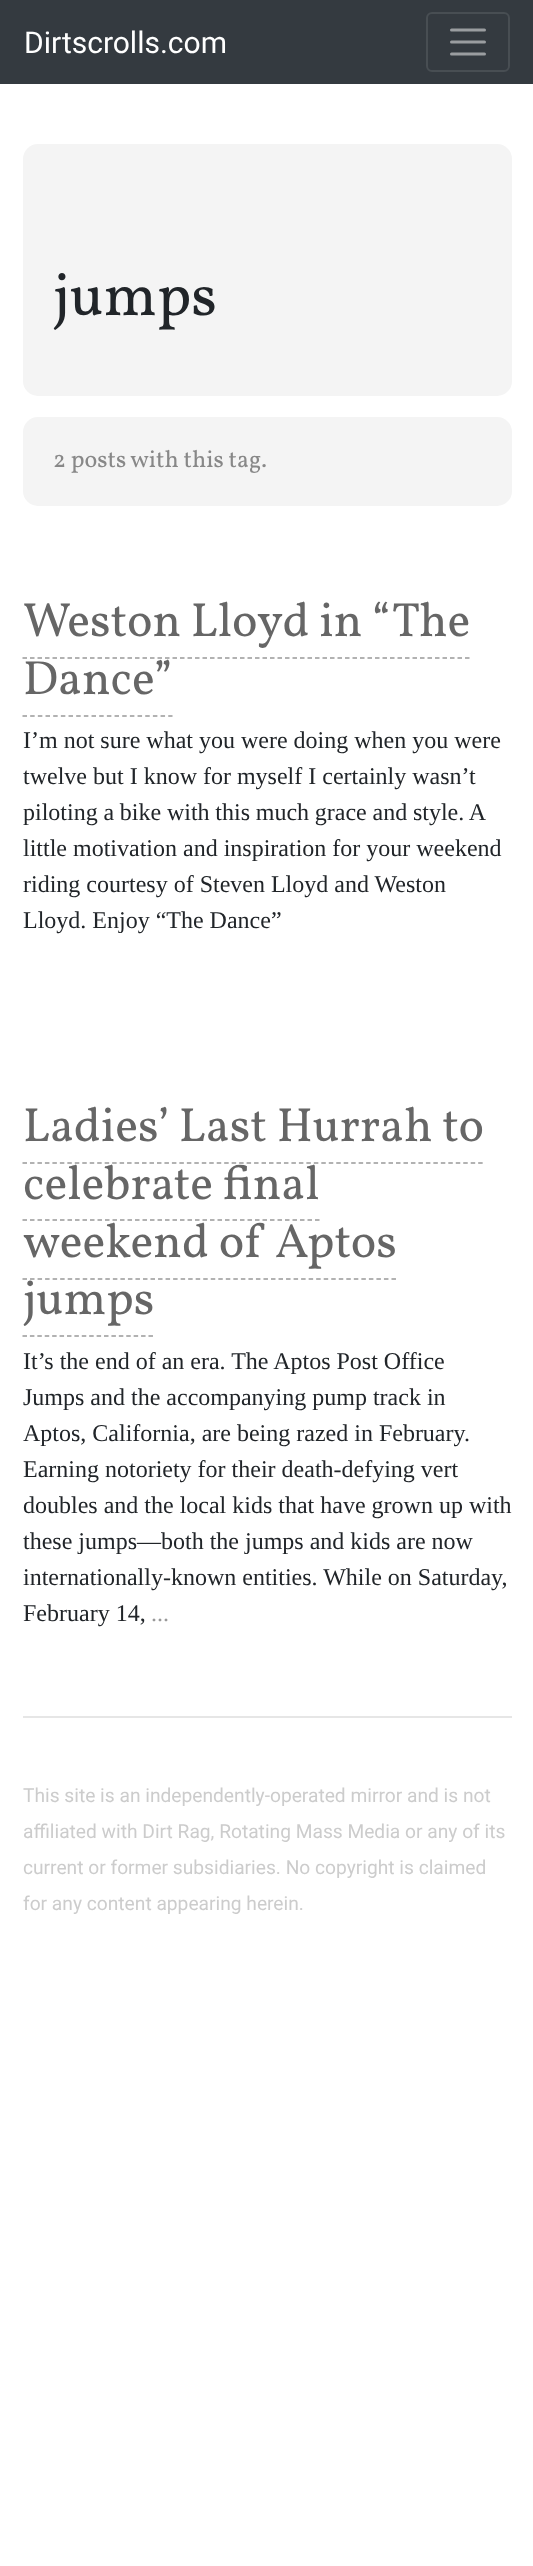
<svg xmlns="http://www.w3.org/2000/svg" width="533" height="2566">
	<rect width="100%" height="100%" fill="#FFFFFF" />
	<rect x="0" y="0" width="533" height="84" fill="#343A40" />
	<text x="24" y="53" font-family="Roboto" font-size="30" fill="#FFFFFF">Dirtscrolls.com</text>
	<rect x="427" y="13" width="82" height="58" rx="5" fill="none" stroke="#484E53" stroke-width="2" />
	<path d="M451.5 30H484.5M451.5 42H484.5M451.5 54H484.5" fill="none" stroke="#9A9DA0" stroke-width="3" stroke-linecap="round" />
	<rect x="23" y="144" width="489" height="252" rx="15" fill="#F4F4F4" />
	<text x="53" y="315" font-family="Vollkorn" font-size="60" fill="#212529">jumps</text>
	<rect x="23" y="417" width="489" height="89" rx="15" fill="#F4F4F4" />
	<text x="53" y="467" font-family="Vollkorn" font-size="24" fill="#888888">2 posts with this tag.</text>
	<g font-family="Vollkorn" font-size="48" fill="#666666">
		<text x="23" y="636">Weston Lloyd in “The</text>
		<text x="23" y="694">Dance”</text>
	</g>
	<path d="M22.5 658H469.5" fill="none" stroke="#999999" stroke-width="1.5" stroke-dasharray="4.5 3" />
	<path d="M22.5 716H172.5" fill="none" stroke="#999999" stroke-width="1.5" stroke-dasharray="4.5 3.17" />
	<g font-family="Liberation Serif" font-size="24" fill="#212529">
		<text x="23" y="748">I’m not sure what you were doing when you were</text>
		<text x="23" y="784">twelve but I know for myself I certainly wasn’t</text>
		<text x="23" y="820" word-spacing="-0.25">piloting a bike with this much grace and style. A</text>
		<text x="23" y="856">little motivation and inspiration for your weekend</text>
		<text x="23" y="892">riding courtesy of Steven Lloyd and Weston</text>
		<text x="23" y="928">Lloyd. Enjoy “The Dance”</text>
	</g>
	<g font-family="Vollkorn" font-size="48" fill="#666666">
		<text x="23" y="1141">Ladies’ Last Hurrah to</text>
		<text x="23" y="1199">celebrate final</text>
	</g>
	<path d="M22.5 1163H483" fill="none" stroke="#999999" stroke-width="1.5" stroke-dasharray="4.5 2.97" />
	<text x="23" y="1257" font-family="Vollkorn" font-size="48" fill="#666666">weekend of Aptos</text>
	<path d="M22.5 1220H319.5" fill="none" stroke="#999999" stroke-width="1.5" stroke-dasharray="4.5 3" />
	<text x="23" y="1314" font-family="Vollkorn" font-size="48" fill="#666666">jumps</text>
	<path d="M22.5 1279H396" fill="none" stroke="#999999" stroke-width="1.5" stroke-dasharray="4.5 3.03" />
	<path d="M22.5 1336H153" fill="none" stroke="#999999" stroke-width="1.5" stroke-dasharray="4.5 2.91" />
	<g font-family="Liberation Serif" font-size="24" fill="#212529">
		<text x="23" y="1369">It’s the end of an era. The Aptos Post Office</text>
		<text x="23" y="1405">Jumps and the accompanying pump track in</text>
		<text x="23" y="1441">Aptos, California, are being razed in February.</text>
		<text x="23" y="1477">Earning notoriety for their death-defying vert</text>
		<text x="23" y="1513">doubles and the local kids that have grown up with</text>
		<text x="23" y="1549">these jumps—both the jumps and kids are now</text>
		<text x="23" y="1585">internationally-known entities. While on Saturday,</text>
		<text x="23" y="1621">February 14,</text>
	</g>
	<text x="151" y="1621" font-family="Liberation Serif" font-size="24" fill="#999999">...</text>
	<rect x="23" y="1716" width="489" height="2" fill="#E6E6E6" />
	<g font-family="Roboto" font-size="19.2" fill="#CCCCCC">
		<text x="23" y="1802">This site is an independently-operated mirror and is not</text>
		<text x="23" y="1838">affiliated with Dirt Rag, Rotating Mass Media or any of its</text>
		<text x="23" y="1874">current or former subsidiaries. No copyright is claimed</text>
		<text x="23" y="1910">for any content appearing herein.</text>
	</g>
</svg>
